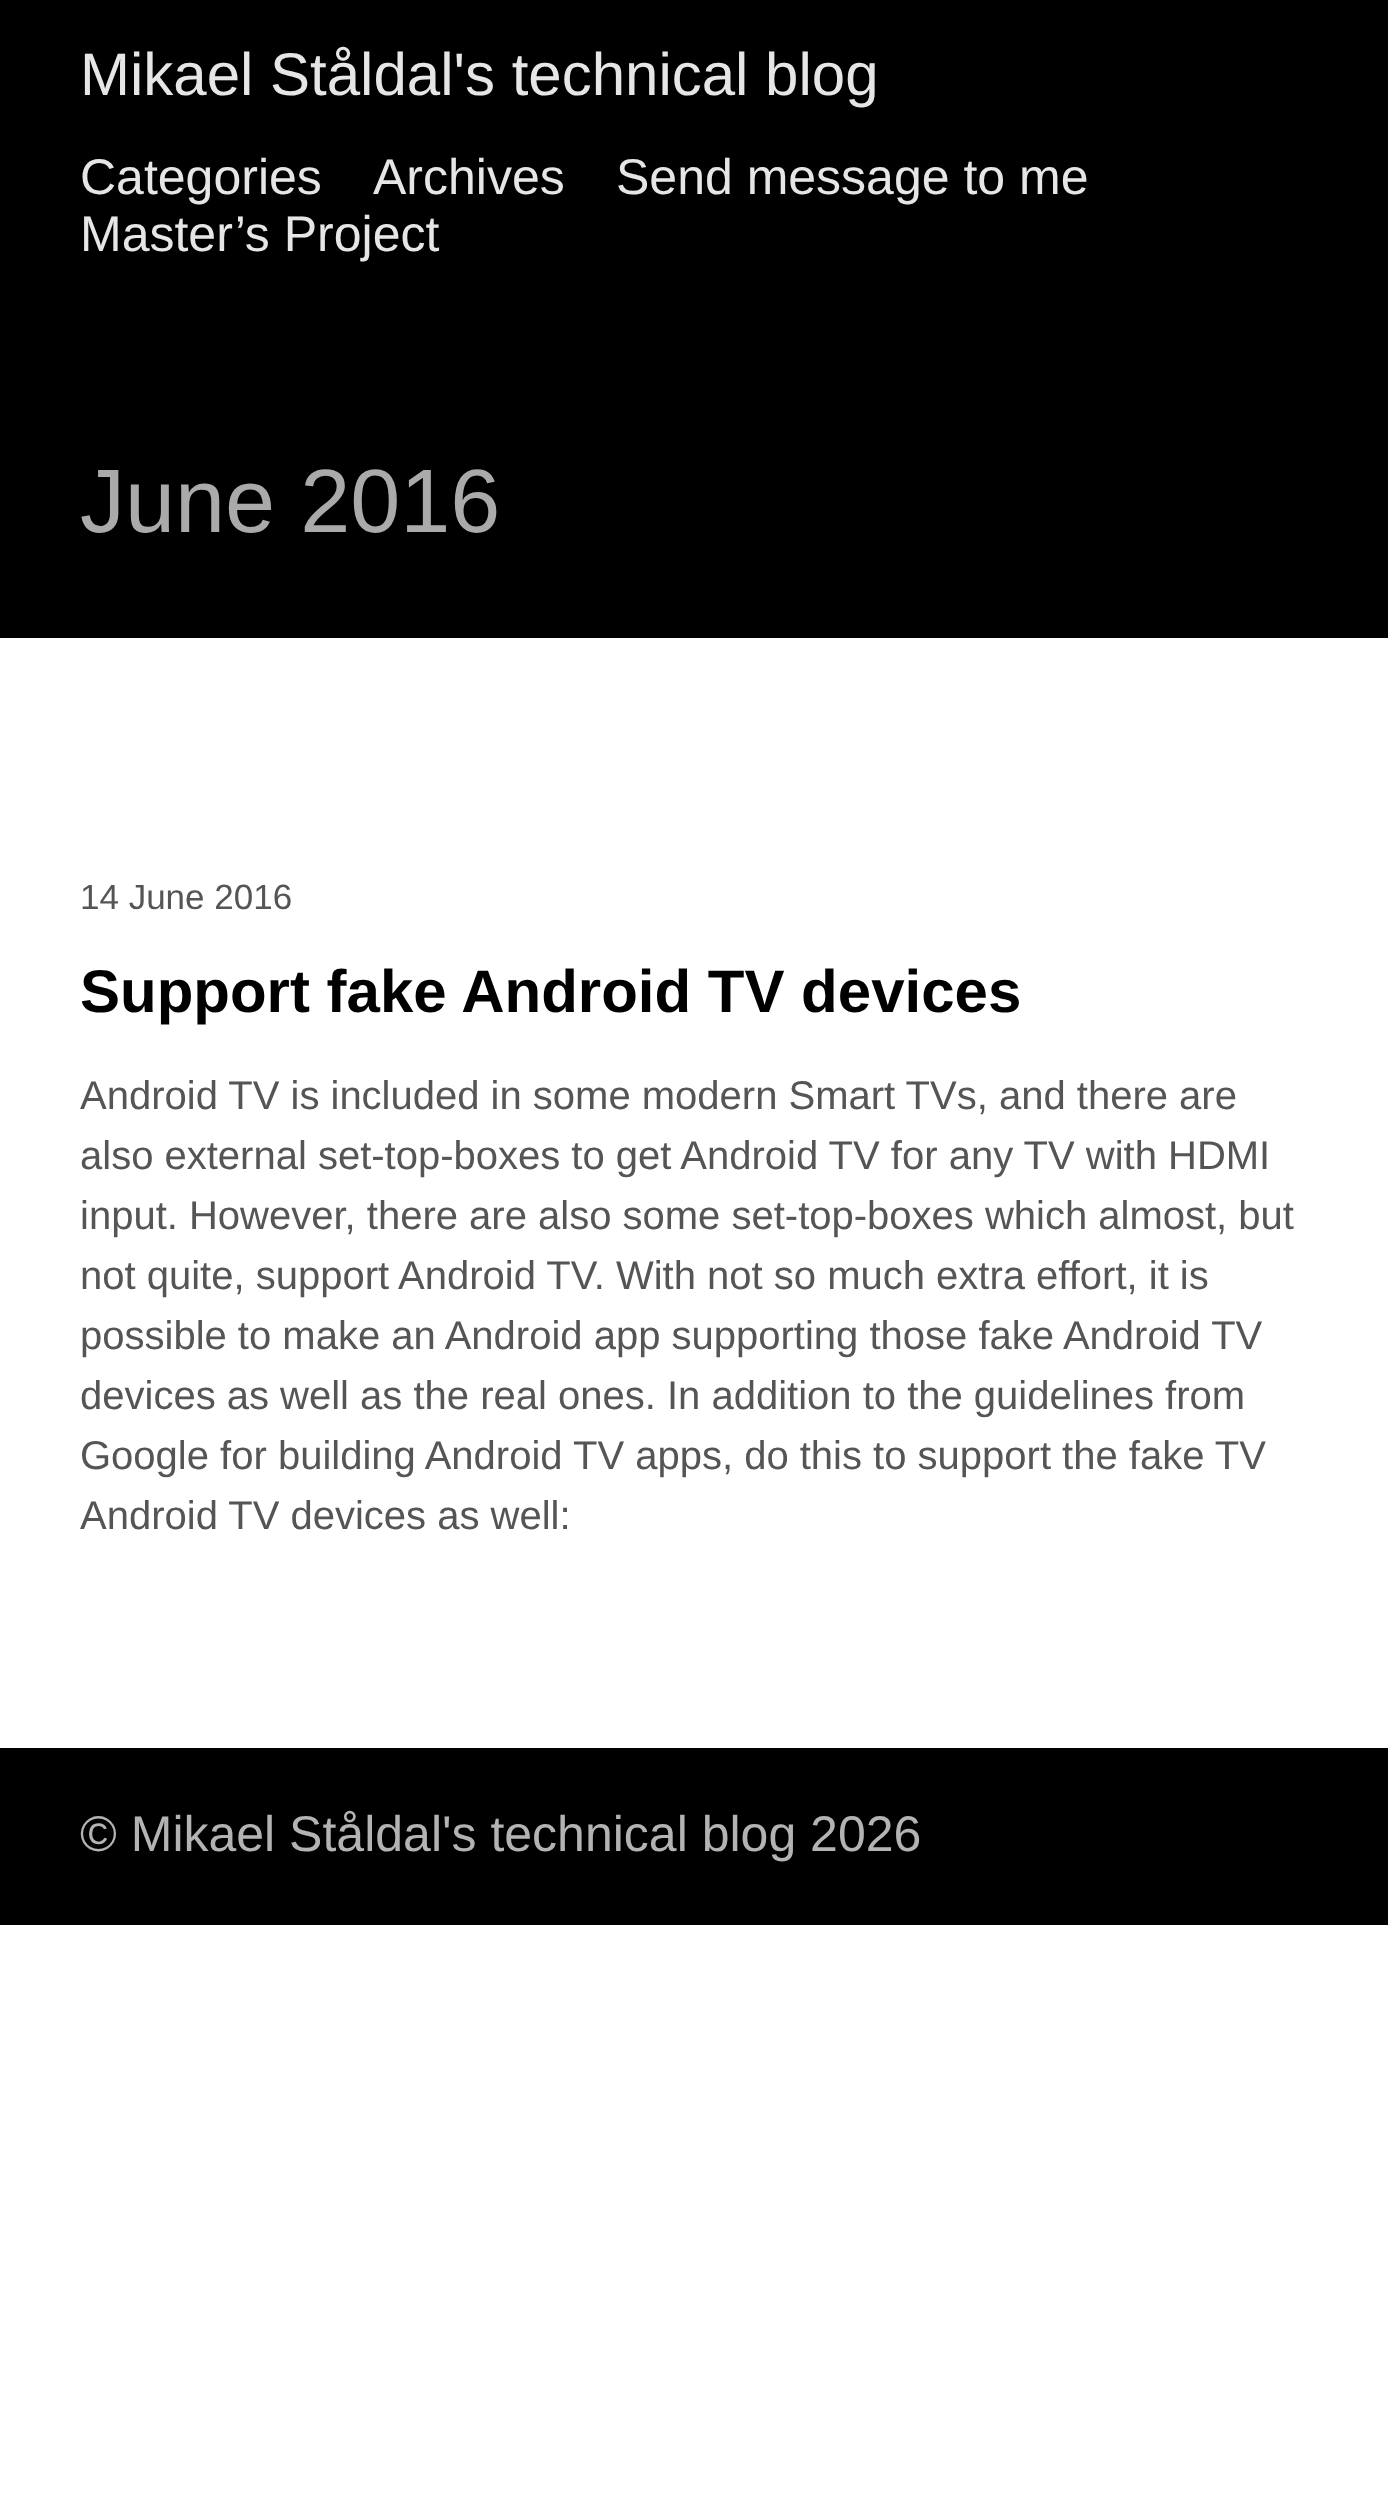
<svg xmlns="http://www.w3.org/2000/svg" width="1388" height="2510">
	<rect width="100%" height="100%" fill="#FFFFFF" />
	<rect x="0" y="0" width="1388" height="638" fill="#000000" />
	<text x="80" y="95" font-family="Liberation Sans" font-size="60" fill="#E6E6E6">Mikael Ståldal's technical blog</text>
	<g font-family="Liberation Sans" font-size="50" fill="#E6E6E6">
		<text x="80" y="194">Categories</text>
		<text x="373" y="194">Archives</text>
		<text x="616" y="194">Send message to me</text>
		<text x="80" y="251">Master’s Project</text>
	</g>
	<text x="80" y="532" font-family="Liberation Sans" font-size="90" fill="#AAAAAA">June 2016</text>
	<text x="80" y="909" font-family="Liberation Sans" font-size="35" fill="#555555">14 June 2016</text>
	<text x="80" y="1012" font-family="Liberation Sans" font-size="60" font-weight="700" fill="#000000">Support fake Android TV devices</text>
	<g font-family="Liberation Sans" font-size="40" fill="#555555">
		<text x="80" y="1109">Android TV is included in some modern Smart TVs, and there are</text>
		<text x="80" y="1169">also external set-top-boxes to get Android TV for any TV with HDMI</text>
		<text x="80" y="1229">input. However, there are also some set-top-boxes which almost, but</text>
		<text x="80" y="1289">not quite, support Android TV. With not so much extra effort, it is</text>
		<text x="80" y="1349">possible to make an Android app supporting those fake Android TV</text>
		<text x="80" y="1409">devices as well as the real ones. In addition to the guidelines from</text>
		<text x="80" y="1469">Google for building Android TV apps, do this to support the fake TV</text>
		<text x="80" y="1529">Android TV devices as well:</text>
	</g>
	<rect x="0" y="1748" width="1388" height="177" fill="#000000" />
	<text x="80" y="1851" font-family="Liberation Sans" font-size="50" fill="#B3B3B3">© Mikael Ståldal's technical blog 2026</text>
</svg>
